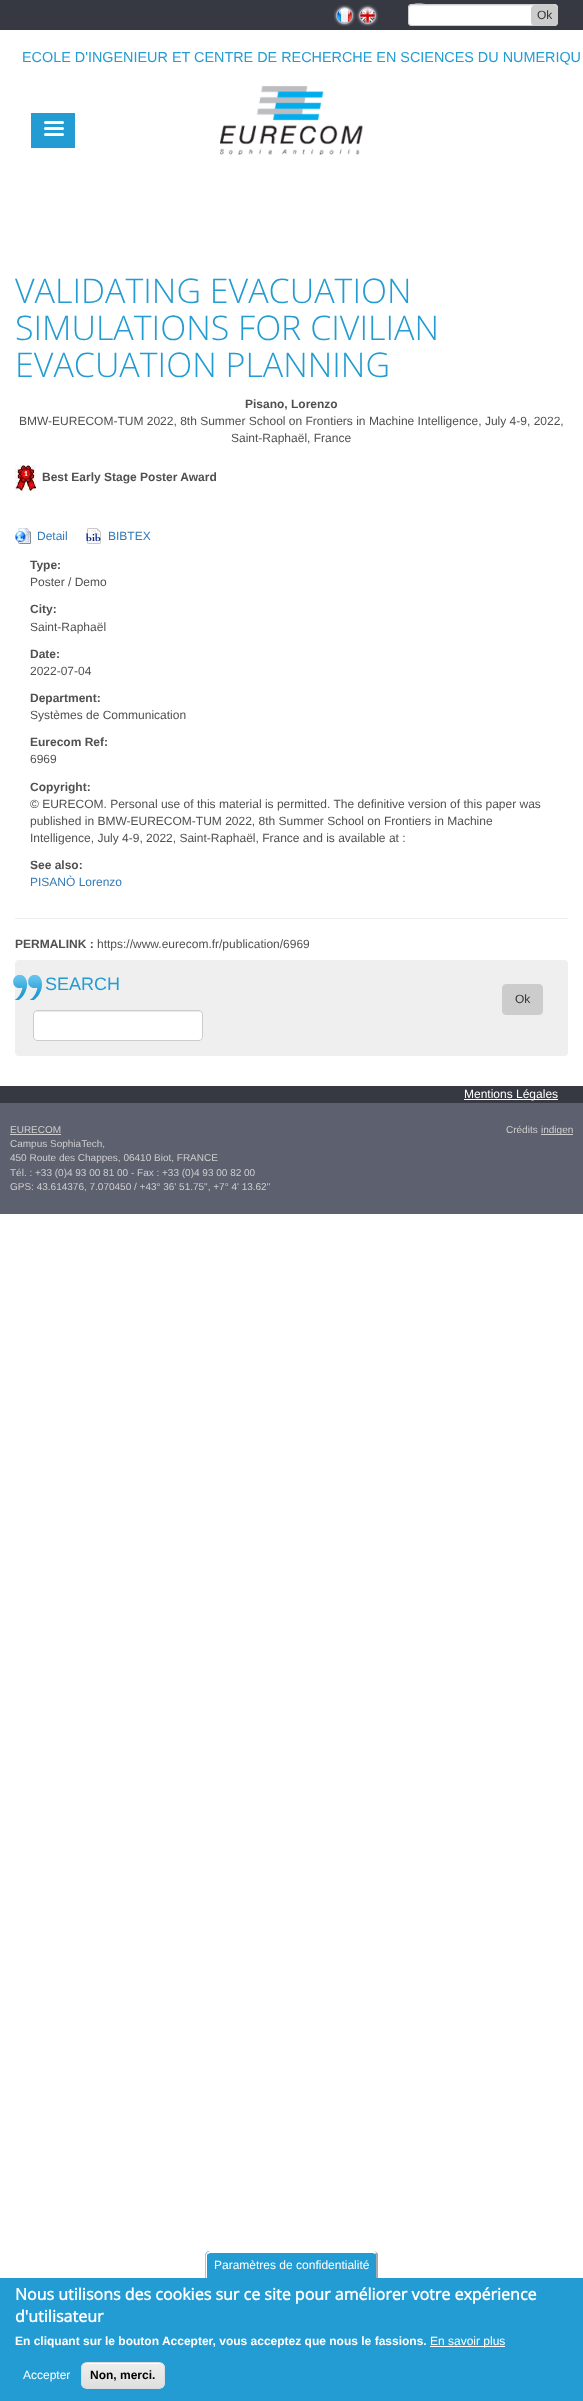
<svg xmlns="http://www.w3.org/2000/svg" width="583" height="2401">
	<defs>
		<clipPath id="clip1"><rect x="81" y="2362" width="84" height="27" rx="6" /></clipPath>
		<linearGradient id="g1" gradientUnits="userSpaceOnUse" x1="123" y1="2363" x2="123" y2="2388"><stop offset="0.05" stop-color="#EDEDED" /><stop offset="1" stop-color="#DFDFDF" /></linearGradient>
	</defs>
	<rect width="100%" height="100%" fill="#FFFFFF" />
	<rect x="0" y="0" width="583" height="30" fill="#363842" />
	<image x="334" y="5" width="22" height="21" href="assets/img1.png" />
	<image x="356" y="5" width="22" height="21" href="assets/img2.png" />
	<rect x="408" y="4" width="150" height="22" rx="4" fill="#FFFFFF" />
	<path d="M412 6H554C556 6 557 7 557 9C557 7 557 6 555 5H436C428 5 409 0 409 9C409 7 410 6 412 6Z" fill="#ECECEC" />
	<rect x="408.5" y="4.5" width="149" height="21" rx="3.5" fill="none" stroke="#CCCCCC" />
	<rect x="531.5" y="5.5" width="26" height="20" rx="3.5" fill="#CCCCCC" stroke="#CCCCCC" />
	<text x="537" y="19" font-family="Liberation Sans" font-size="12" fill="#333333">Ok</text>
	<text x="22" y="62" font-family="Liberation Sans" font-size="14.4" fill="#239CD3">ECOLE D'INGENIEUR ET CENTRE DE RECHERCHE EN SCIENCES DU NUMERIQU</text>
	<image x="220" y="86" width="143" height="69" href="assets/img3.png" />
	<rect x="31" y="113" width="44" height="35" fill="#239CD3" />
	<rect x="44" y="121" width="20" height="3" rx="1.5" fill="#FFFFFF" />
	<rect x="44" y="127" width="20" height="3" rx="1.5" fill="#FFFFFF" />
	<rect x="44" y="133" width="20" height="3" rx="1.5" fill="#FFFFFF" />
	<g font-family="Open Sans" font-size="34" font-weight="300" fill="#239CD3">
		<text x="15" y="303">VALIDATING EVACUATION</text>
		<text x="15" y="340">SIMULATIONS FOR CIVILIAN</text>
		<text x="15" y="377">EVACUATION PLANNING</text>
	</g>
	<text x="245" y="408" font-family="Liberation Sans" font-size="12" font-weight="700" fill="#505050">Pisano, Lorenzo</text>
	<g font-family="Liberation Sans" font-size="12" fill="#505050">
		<text x="19" y="425">BMW-EURECOM-TUM 2022, 8th Summer School on Frontiers in Machine Intelligence, July 4-9, 2022,</text>
		<text x="231" y="442">Saint-Raphaël, France</text>
	</g>
	<image x="15" y="465" width="21" height="26" href="assets/img4.png" />
	<text x="42" y="481" font-family="Liberation Sans" font-size="12" font-weight="700" fill="#505050">Best Early Stage Poster Award</text>
	<image x="15" y="528" width="16" height="16" href="assets/img5.png" />
	<text x="37" y="540" font-family="Liberation Sans" font-size="12" fill="#337AB7">Detail</text>
	<image x="86" y="528" width="15" height="16" href="assets/img6.png" />
	<text x="108" y="540" font-family="Liberation Sans" font-size="12" fill="#337AB7">BIBTEX</text>
	<text x="30" y="569" font-family="Liberation Sans" font-size="12" font-weight="700" fill="#505050">Type:</text>
	<text x="30" y="586" font-family="Liberation Sans" font-size="12" fill="#505050">Poster / Demo</text>
	<text x="30" y="613" font-family="Liberation Sans" font-size="12" font-weight="700" fill="#505050">City:</text>
	<text x="30" y="631" font-family="Liberation Sans" font-size="12" fill="#505050">Saint-Raphaël</text>
	<text x="30" y="658" font-family="Liberation Sans" font-size="12" font-weight="700" fill="#505050">Date:</text>
	<text x="30" y="675" font-family="Liberation Sans" font-size="12" fill="#505050">2022-07-04</text>
	<text x="30" y="702" font-family="Liberation Sans" font-size="12" font-weight="700" fill="#505050">Department:</text>
	<text x="30" y="719" font-family="Liberation Sans" font-size="12" fill="#505050">Systèmes de Communication</text>
	<text x="30" y="746" font-family="Liberation Sans" font-size="12" font-weight="700" fill="#505050">Eurecom Ref:</text>
	<text x="30" y="763" font-family="Liberation Sans" font-size="12" fill="#505050">6969</text>
	<text x="30" y="791" font-family="Liberation Sans" font-size="12" font-weight="700" fill="#505050">Copyright:</text>
	<g font-family="Liberation Sans" font-size="12" fill="#505050">
		<text x="30" y="808">© EURECOM. Personal use of this material is permitted. The definitive version of this paper was</text>
		<text x="30" y="825">published in BMW-EURECOM-TUM 2022, 8th Summer School on Frontiers in Machine</text>
		<text x="30" y="842">Intelligence, July 4-9, 2022, Saint-Raphaël, France and is available at :</text>
	</g>
	<text x="30" y="869" font-family="Liberation Sans" font-size="12" font-weight="700" fill="#505050">See also:</text>
	<text x="30" y="886" font-family="Liberation Sans" font-size="12" fill="#337AB7">PISANÒ Lorenzo</text>
	<rect x="15" y="918" width="553" height="1" fill="#EEEEEE" />
	<text x="15" y="948" font-family="Liberation Sans" font-size="12" font-weight="700" fill="#505050">PERMALINK :</text>
	<text x="97" y="948" font-family="Liberation Sans" font-size="12" fill="#505050">https://www.eurecom.fr/publication/6969</text>
	<rect x="15" y="960" width="553" height="96" rx="4" fill="#EFEFEF" />
	<image x="13" y="975" width="29" height="25" href="assets/img7.png" />
	<text x="45" y="990" font-family="Liberation Sans" font-size="18" fill="#239CD3">SEARCH</text>
	<rect x="33" y="1010" width="170" height="31" rx="4" fill="#FFFFFF" />
	<path d="M37 1012H199C201 1012 202 1013 202 1015V1014C202 1012 201 1011 199 1011H37C35 1011 34 1012 34 1014V1015C34 1013 35 1012 37 1012Z" fill="#ECECEC" />
	<rect x="33.5" y="1010.5" width="169" height="30" rx="3.5" fill="none" stroke="#CCCCCC" />
	<rect x="502.5" y="984.5" width="40" height="30" rx="3.5" fill="#CCCCCC" stroke="#CCCCCC" />
	<text x="515" y="1003" font-family="Liberation Sans" font-size="12" fill="#333333">Ok</text>
	<rect x="0" y="1086" width="583" height="17" fill="#363842" />
	<rect x="464" y="1099" width="94" height="1" fill="#FFFFFF" />
	<text x="464" y="1098" font-family="Liberation Sans" font-size="12" fill="#FFFFFF">Mentions Légales</text>
	<rect x="0" y="1103" width="583" height="111" fill="#5D606E" />
	<text x="10" y="1133" font-family="Liberation Sans" font-size="10" fill="#CECECE">EURECOM</text>
	<rect x="10" y="1134" width="51" height="1" fill="#CECECE" />
	<g font-family="Liberation Sans" font-size="10" fill="#CECECE">
		<text x="10" y="1147">Campus SophiaTech,</text>
		<text x="10" y="1161">450 Route des Chappes, 06410 Biot, FRANCE</text>
		<text x="10" y="1176">Tél. : +33 (0)4 93 00 81 00 - Fax : +33 (0)4 93 00 82 00</text>
		<text x="10" y="1190">GPS: 43.614376, 7.070450 / +43° 36' 51.75", +7° 4' 13.62"</text>
		<text x="506" y="1133">Crédits</text>
	</g>
	<rect x="541" y="1134" width="32" height="1" fill="#CECECE" />
	<text x="541" y="1133" font-family="Liberation Sans" font-size="10" fill="#CECECE">indigen</text>
	<rect x="0" y="2278" width="583" height="123" fill="#239CD3" />
	<path d="M210 2251H373C376 2251 378 2253 378 2256V2278H205V2256C205 2253 207 2251 210 2251Z" fill="#239CD3" />
	<path d="M210 2251H374L377 2252L375 2254L373 2253H210L208 2254L207 2252Z" fill="#FFFFFF" />
	<path d="M376 2278V2256C376 2255 376 2254.5 375.5 2254L376.5 2252.5C377.5 2253.5 378 2254.5 378 2256V2278Z" fill="#AAAAAA" />
	<path d="M205.5 2278H207V2256C207 2255 207.5 2254 208 2253.5L207 2252.5L205.5 2254.5Z" fill="#FFFFFF" />
	<text x="214" y="2269" font-family="Liberation Sans" font-size="12" fill="#FFFFFF">Paramètres de confidentialité</text>
	<g font-family="Open Sans" font-size="16" font-weight="700" fill="#FFFFFF">
		<text x="15" y="2300">Nous utilisons des cookies sur ce site pour améliorer votre expérience</text>
		<text x="15" y="2322">d'utilisateur</text>
	</g>
	<text x="15" y="2345" font-family="Liberation Sans" font-size="12" font-weight="700" fill="#FFFFFF">En cliquant sur le bouton Accepter, vous acceptez que nous le fassions.</text>
	<rect x="430" y="2346" width="75" height="1" fill="#FFFFFF" />
	<g font-family="Liberation Sans" font-size="12" fill="#FFFFFF">
		<text x="430" y="2345">En savoir plus</text>
		<text x="23" y="2379">Accepter</text>
	</g>
	<g clip-path="url(#clip1)">
		<rect x="81" y="2363" width="84" height="25" fill="url(#g1)" />
	</g>
	<path d="M87 2364H159C162 2364 164 2366 164 2369C164 2360 153 2363 147 2363H99C93 2363 82 2360 82 2369C82 2366 84 2364 87 2364Z" fill="#FFFFFF" />
	<rect x="81.5" y="2362.5" width="83" height="26" rx="5.5" fill="none" stroke="#DCDCDC" />
	<text x="90" y="2379" font-family="Liberation Sans" font-size="12" font-weight="700" fill="#000000">Non, merci.</text>
</svg>
